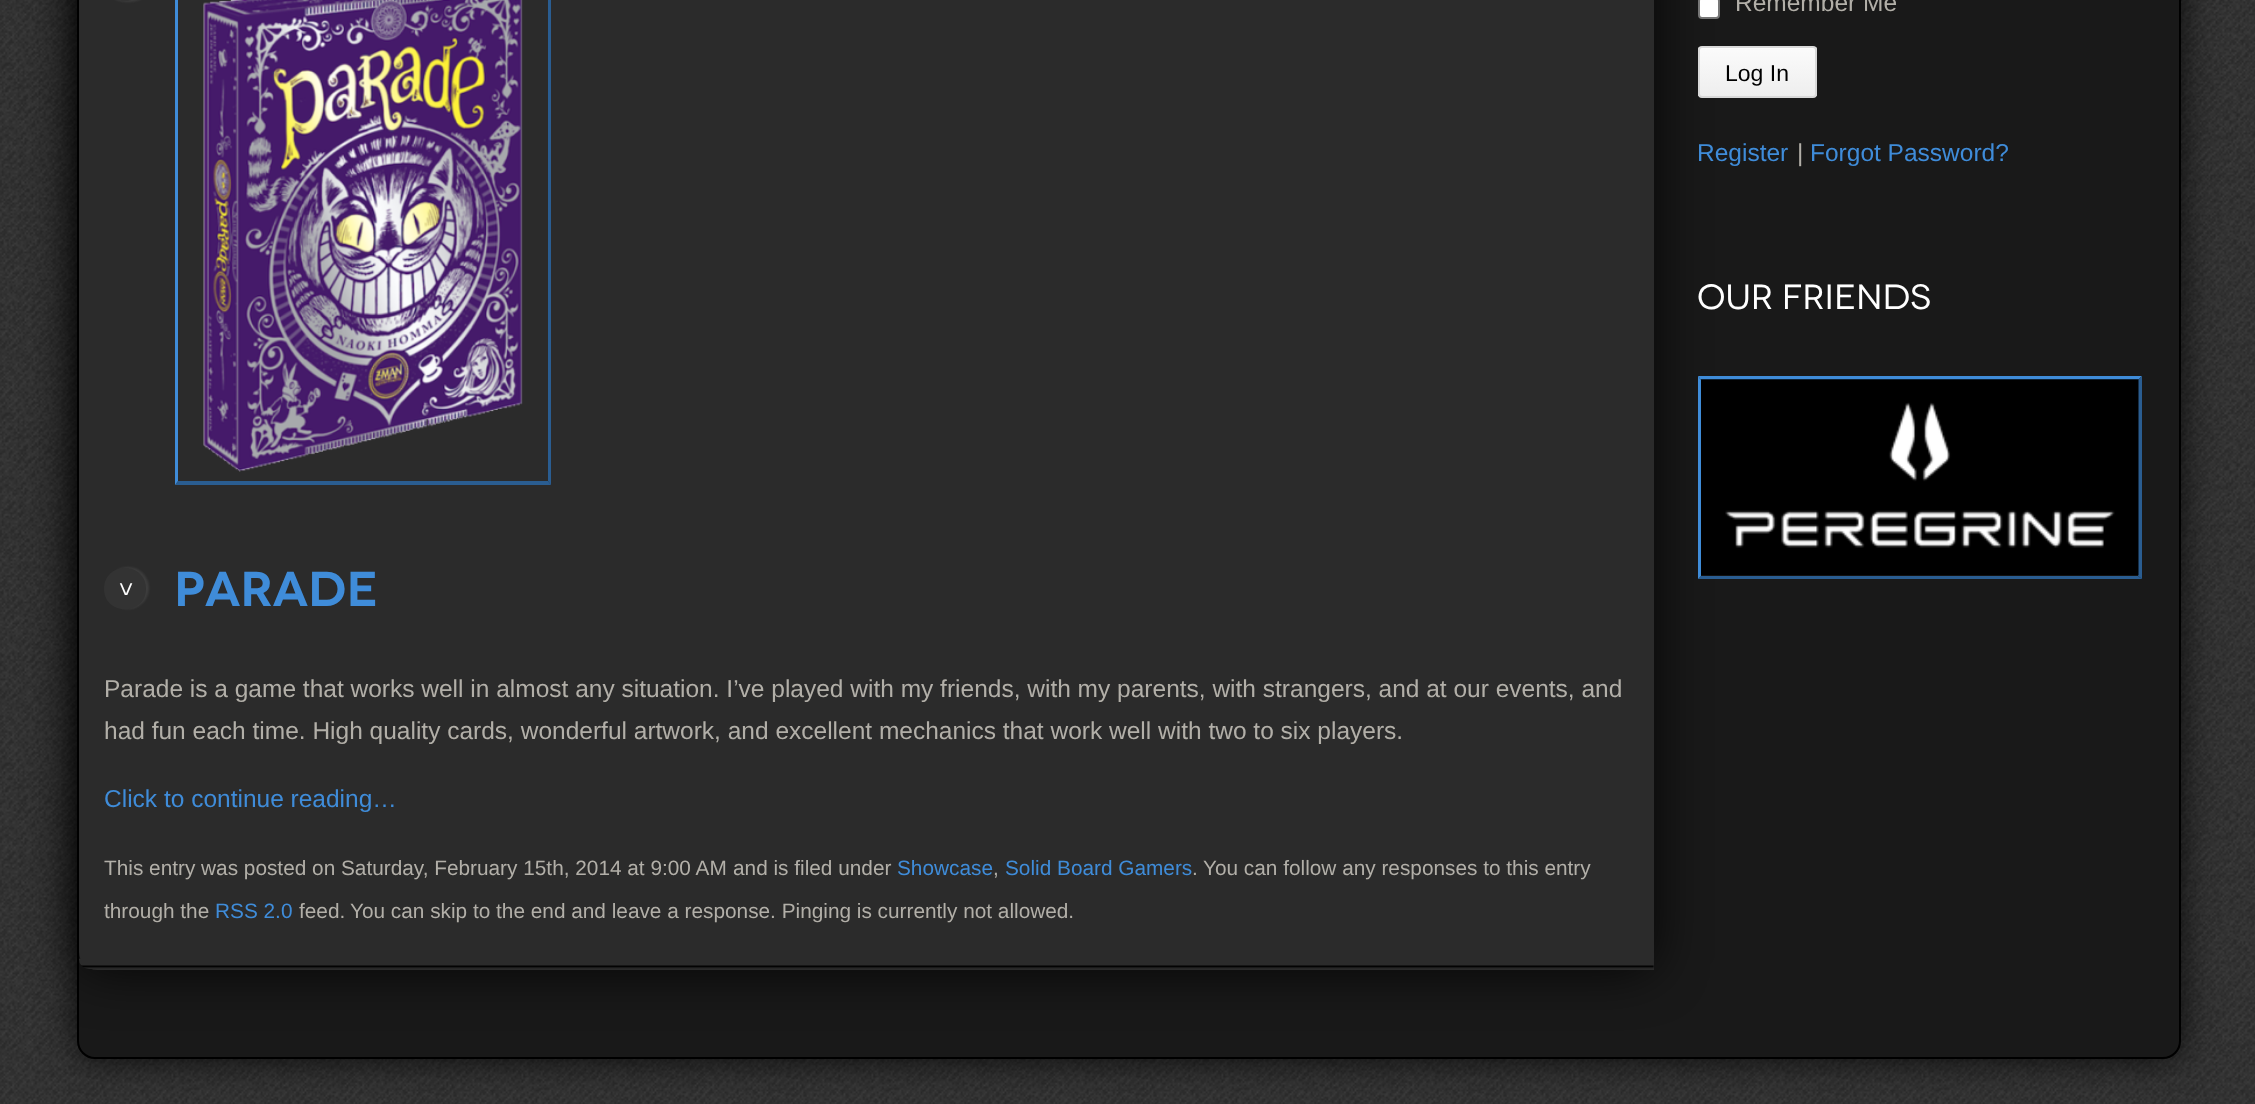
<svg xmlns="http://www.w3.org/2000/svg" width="2255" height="1104">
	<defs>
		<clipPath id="clip1"><rect x="1698" y="46" width="119" height="52" rx="4" /></clipPath>
		<linearGradient id="g1" gradientUnits="userSpaceOnUse" x1="1757" y1="47" x2="1757" y2="96"><stop offset="0" stop-color="#FBFBFB" /><stop offset="1" stop-color="#EEEEEE" /></linearGradient>
	</defs>
	<rect width="100%" height="100%" fill="#FFFFFF" />
	<image x="0" y="0" width="2255" height="1104" href="assets/img1.png" />
	<rect x="77" y="-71" width="2104" height="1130" rx="18" fill="#000000" fill-opacity="0.8" filter="blur(17.5px)" />
	<rect x="78" y="-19" width="2102" height="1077" rx="17" fill="#191919" stroke="#000000" stroke-width="2" />
	<rect x="79" y="-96" width="1575" height="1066" rx="18" fill="#000000" fill-opacity="0.8" filter="blur(26px)" />
	<rect x="1699" y="-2" width="20" height="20" rx="3" fill="#FFFFFF" stroke="#767676" stroke-width="2" />
	<text x="1735" y="11" font-family="Liberation Sans" font-size="24.5" fill="#B2AFA8">Remember Me</text>
	<g clip-path="url(#clip1)">
		<rect x="1698" y="47" width="119" height="49" fill="url(#g1)" />
	</g>
	<path d="M1701 49H1813C1814 49 1815 50 1815 51V49C1815 48 1814 47 1813 47H1701C1700 47 1699 48 1699 49V51C1699 50 1700 49 1701 49Z" fill="#FDFDFD" />
	<rect x="1699" y="47" width="117" height="50" rx="3" fill="none" stroke="#D9D9D9" stroke-width="2" />
	<text x="1725" y="81" font-family="Liberation Sans" font-size="23" fill="#000000">Log In</text>
	<text x="1697" y="161" font-family="Liberation Sans" font-size="24.5" fill="#3F8CD9">Register</text>
	<text x="1797" y="161" font-family="Liberation Sans" font-size="24.5" fill="#B2AFA8">|</text>
	<text x="1810" y="161" font-family="Liberation Sans" font-size="24.5" fill="#3F8CD9">Forgot Password?</text>
	<text x="1697" y="309" font-family="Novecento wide" font-size="35" fill="#FFFFFF">Our Friends</text>
	<path d="M1698 376H2142L2138 380H1701Z" fill="#3F8CD9" />
	<path d="M2142 376V579L2138 576V380Z" fill="#2A5D91" />
	<path d="M2142 579H1698L1701 576H2138Z" fill="#2A5D91" />
	<path d="M1698 579V376L1701 380V576Z" fill="#3F8CD9" />
	<image x="1701" y="379" width="438" height="197" href="assets/img2.png" />
	<path d="M97-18H1654V970H97C87 970 79 962 79 952V0C79-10 87-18 97-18Z" fill="#2B2B2B" />
	<rect x="107" y="-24" width="42" height="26" rx="21" fill="#E1E1E1" fill-opacity="0.1" filter="blur(1px)" />
	<path d="M146-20C146 8 104 8 104-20C104-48 146-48 146-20Z" fill="#333333" />
	<path d="M551-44V485L548 481V-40Z" fill="#2A5D91" />
	<path d="M551 485H175L178 481H548Z" fill="#2A5D91" />
	<path d="M175 485V-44L178-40V481Z" fill="#3F8CD9" />
	<image x="203" y="0" width="320" height="472" href="assets/img3.png" />
	<rect x="107" y="567" width="42" height="42" rx="21" fill="#E1E1E1" fill-opacity="0.1" filter="blur(1px)" />
	<path d="M146 589C146 616 104 616 104 589C104 561 146 561 146 589Z" fill="#333333" />
	<text x="118" y="582" transform="rotate(90 118 582)" font-family="Liberation Sans" font-size="24.5" fill="#FFFFFF">&gt;</text>
	<text x="174" y="606" font-family="Novecento wide" font-size="49" font-weight="600" fill="#3F8CD9">Parade</text>
	<g font-family="Liberation Sans" font-size="24.5" fill="#B2AFA8">
		<text x="104" y="697">Parade is a game that works well in almost any situation. I’ve played with my friends, with my parents, with strangers, and at our events, and</text>
		<text x="104" y="739">had fun each time. High quality cards, wonderful artwork, and excellent mechanics that work well with two to six players.</text>
	</g>
	<text x="104" y="807" font-family="Liberation Sans" font-size="24.5" fill="#3F8CD9">Click to continue reading…</text>
	<g font-family="Liberation Sans" font-size="20.8" fill="#B2AFA8">
		<text x="104" y="875">This entry was posted on Saturday, February 15th, 2014 at 9:00 AM</text>
		<text x="733" y="875">and is filed under</text>
	</g>
	<text x="897" y="875" font-family="Liberation Sans" font-size="20.8" fill="#3F8CD9">Showcase</text>
	<text x="993" y="875" font-family="Liberation Sans" font-size="20.8" fill="#B2AFA8">,</text>
	<text x="1005" y="875" font-family="Liberation Sans" font-size="20.8" fill="#3F8CD9">Solid Board Gamers</text>
	<g font-family="Liberation Sans" font-size="20.8" fill="#B2AFA8">
		<text x="1192" y="875">.</text>
		<text x="1203" y="875">You can follow any responses to this entry</text>
		<text x="104" y="918">through the</text>
	</g>
	<text x="215" y="918" font-family="Liberation Sans" font-size="20.8" fill="#3F8CD9">RSS 2.0</text>
	<g font-family="Liberation Sans" font-size="20.8" fill="#B2AFA8">
		<text x="299" y="918">feed.</text>
		<text x="350" y="918">You can skip to the end and leave a response. Pinging is currently not allowed.</text>
	</g>
	<image x="79" y="958" width="1575" height="11" href="assets/img4.png" />
</svg>
